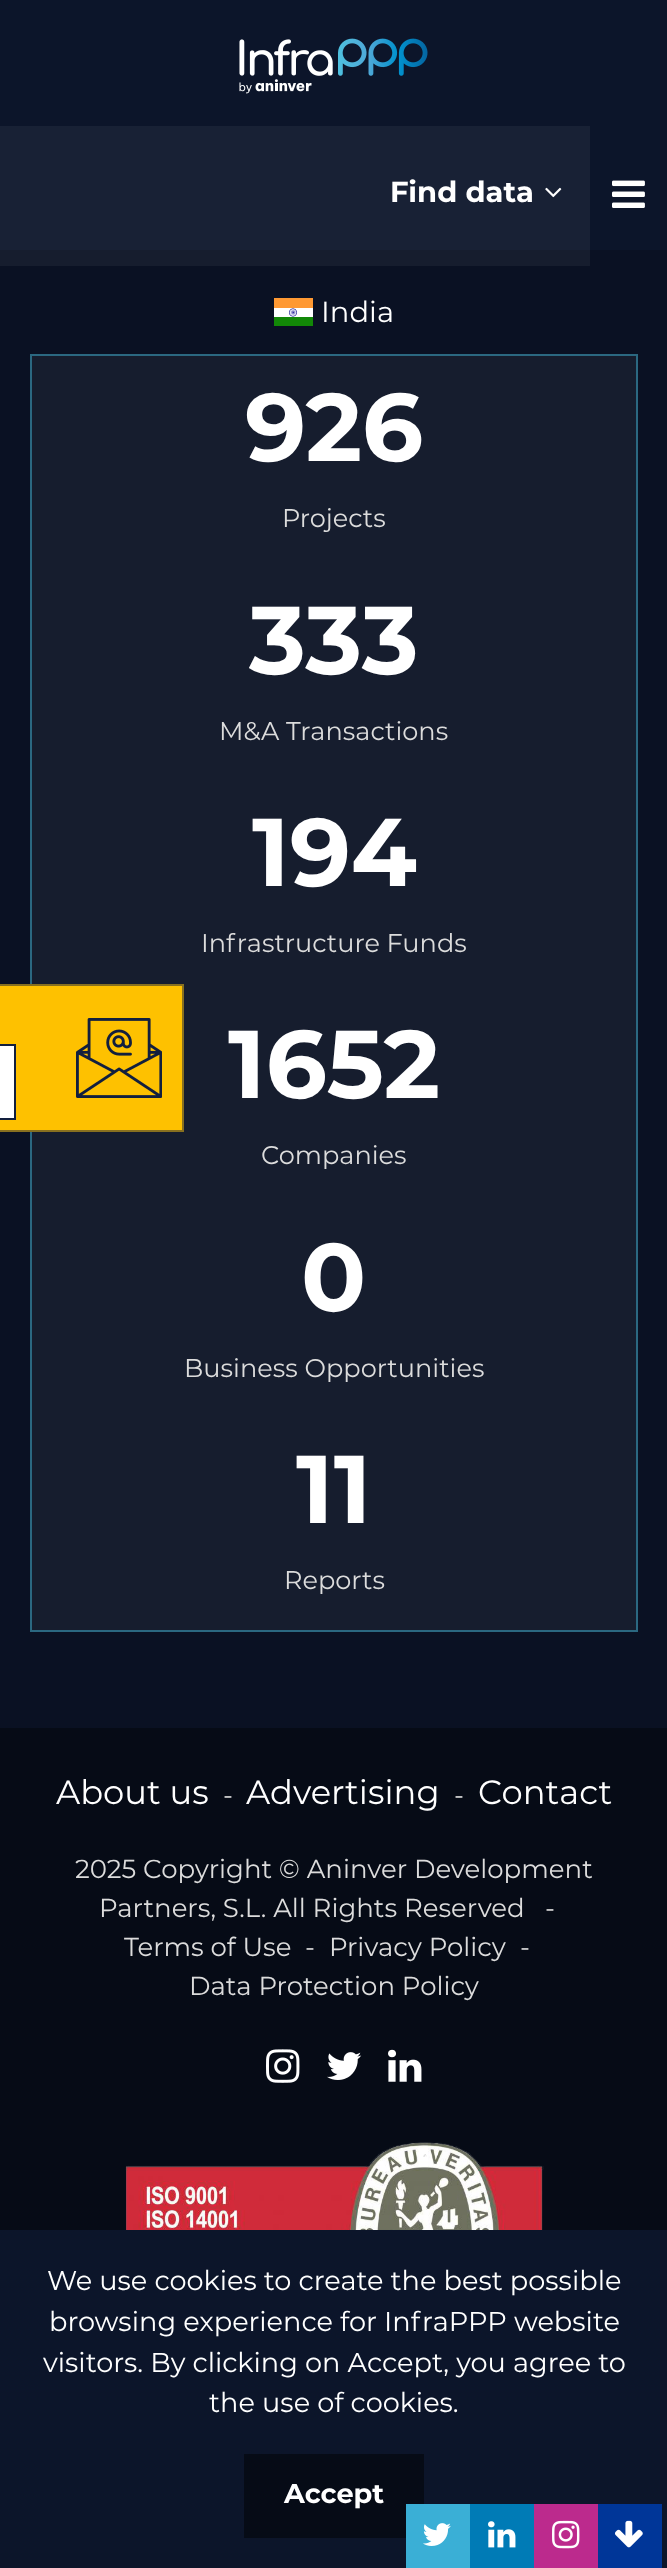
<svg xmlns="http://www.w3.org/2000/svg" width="667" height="2568">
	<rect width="100%" height="100%" fill="#0A1123" />
	<rect x="0" y="0" width="667" height="250" fill="#0C152A" />
	<rect x="0" y="126" width="590" height="124" fill="#182135" />
	<image x="239" y="38" width="189" height="56" href="assets/img1.png" />
	<text x="390" y="202" font-family="Montserrat" font-size="29" font-weight="700" fill="#FFFFFF">Find data</text>
	<image x="545" y="187" width="17" height="11" href="assets/img2.png" />
	<image x="612" y="180" width="33" height="28" href="assets/img3.png" />
	<rect x="0" y="250" width="590" height="16" fill="#161D2E" />
	<image x="274" y="298" width="39" height="28" href="assets/img4.png" />
	<text x="321" y="322" font-family="Montserrat" font-size="29" fill="#FFFFFF">India</text>
	<rect x="31" y="355" width="606" height="1276" fill="none" stroke="#2B6881" stroke-width="2" />
	<rect x="32" y="356" width="604" height="1274" fill="#161D2E" />
	<text x="245" y="461" font-family="Montserrat" font-size="96" font-weight="700" fill="#FFFFFF">926</text>
	<text x="282" y="527" font-family="Montserrat" font-size="25.6" fill="#DCDCDC">Projects</text>
	<text x="249" y="674" font-family="Montserrat" font-size="96" font-weight="700" fill="#FFFFFF">333</text>
	<text x="219" y="740" font-family="Montserrat" font-size="25.6" fill="#DCDCDC">M&amp;A Transactions</text>
	<text x="252" y="886" font-family="Montserrat" font-size="96" font-weight="700" fill="#FFFFFF">194</text>
	<text x="201" y="952" font-family="Montserrat" font-size="25.6" fill="#DCDCDC">Infrastructure Funds</text>
	<text x="228" y="1098" font-family="Montserrat" font-size="96" font-weight="700" fill="#FFFFFF">1652</text>
	<text x="261" y="1164" font-family="Montserrat" font-size="25.6" fill="#DCDCDC">Companies</text>
	<text x="301" y="1311" font-family="Montserrat" font-size="96" font-weight="700" fill="#FFFFFF">0</text>
	<text x="184" y="1377" font-family="Montserrat" font-size="25.6" fill="#DCDCDC">Business Opportunities</text>
	<text x="296" y="1523" font-family="Montserrat" font-size="96" font-weight="700" fill="#FFFFFF">11</text>
	<text x="284" y="1589" font-family="Montserrat" font-size="25.6" fill="#DCDCDC">Reports</text>
	<rect x="0" y="1728" width="667" height="502" fill="#060B16" />
	<text x="56" y="1804" font-family="Montserrat" font-size="33.75" fill="#FFFFFF">About us</text>
	<text x="223" y="1804" font-family="Montserrat" font-size="26" fill="#DCDCDC">-</text>
	<text x="246" y="1804" font-family="Montserrat" font-size="33.75" fill="#FFFFFF">Advertising</text>
	<text x="454" y="1804" font-family="Montserrat" font-size="26" fill="#DCDCDC">-</text>
	<text x="478" y="1804" font-family="Montserrat" font-size="33.75" fill="#FFFFFF">Contact</text>
	<g font-family="Montserrat" font-size="26" fill="#DCDCDC">
		<text x="75" y="1878">2025 Copyright © Aninver Development</text>
		<text x="99" y="1917">Partners, S.L. All Rights Reserved</text>
		<text x="545" y="1917">-</text>
		<text x="124" y="1956">Terms of Use</text>
		<text x="305" y="1956">-</text>
		<text x="329" y="1956">Privacy Policy</text>
		<text x="520" y="1956">-</text>
		<text x="189" y="1995">Data Protection Policy</text>
	</g>
	<image x="266" y="2049" width="34" height="34" href="assets/img5.png" />
	<image x="327" y="2052" width="35" height="28" href="assets/img6.png" />
	<image x="388" y="2049" width="34" height="33" href="assets/img7.png" />
	<image x="125" y="2142" width="419" height="88" href="assets/img8.png" />
	<rect x="-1" y="985" width="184" height="146" fill="#FEC100" stroke="#88701F" stroke-width="2" />
	<rect x="-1" y="1045" width="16" height="74" fill="#FFFFFF" stroke="#121F3E" stroke-width="2" />
	<image x="76" y="1018" width="86" height="80" href="assets/img9.png" />
	<rect x="0" y="2230" width="667" height="338" fill="#0C152A" />
	<rect x="244" y="2454" width="180" height="84" fill="#060B16" />
	<rect x="406" y="2504" width="64" height="64" fill="#3AAFD6" />
	<image x="423" y="2523" width="28" height="23" href="assets/img10.png" />
	<rect x="470" y="2504" width="64" height="64" fill="#007BB6" />
	<image x="488" y="2521" width="28" height="27" href="assets/img11.png" />
	<rect x="534" y="2504" width="64" height="64" fill="#BC2A8D" />
	<image x="552" y="2520" width="28" height="29" href="assets/img12.png" />
	<rect x="598" y="2504" width="64" height="64" fill="#003698" />
	<image x="615" y="2520" width="28" height="28" href="assets/img13.png" />
	<g font-family="Montserrat" font-size="27.2" fill="#FFFFFF">
		<text x="47" y="2290">We use cookies to create the best possible</text>
		<text x="49" y="2331">browsing experience for InfraPPP website</text>
		<text x="43" y="2372">visitors. By clicking on Accept, you agree to</text>
		<text x="209" y="2412">the use of cookies.</text>
	</g>
	<text x="284" y="2503" font-family="Montserrat" font-size="27.2" font-weight="700" fill="#FFFFFF">Accept</text>
</svg>
